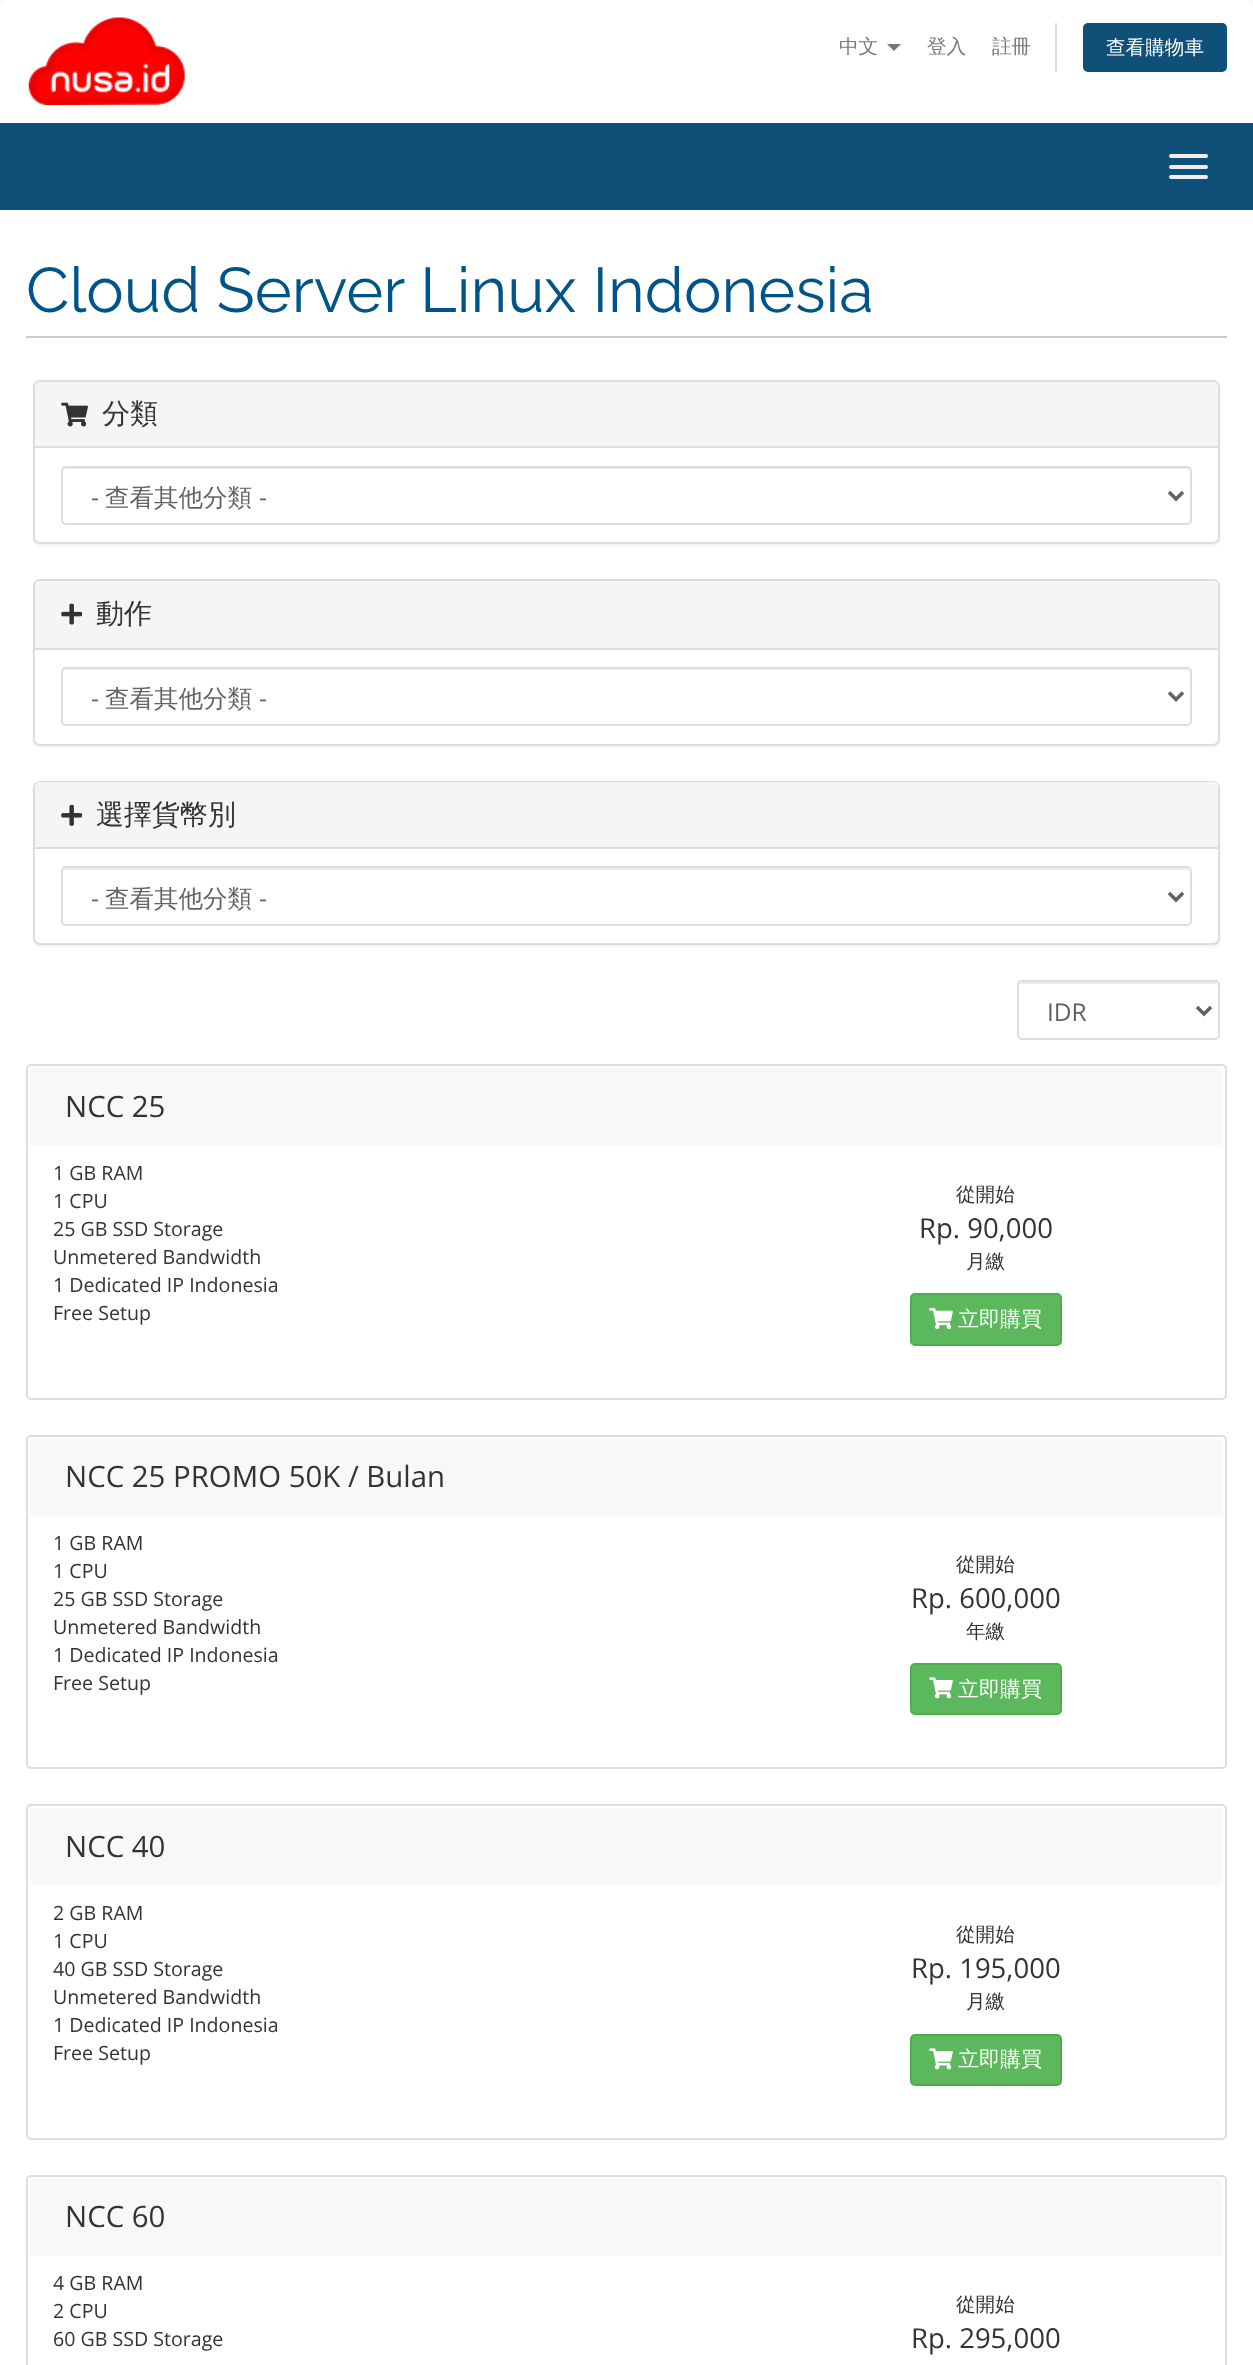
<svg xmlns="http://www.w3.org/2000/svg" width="1253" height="2365">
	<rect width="100%" height="100%" fill="#F8F8F8" />
	<path d="M9 0H1244C1249 0 1253 4 1253 9V123H0V9C0 4 4 0 9 0Z" fill="#FFFFFF" />
	<image x="28" y="17" width="157" height="88" href="assets/img1.png" />
	<text x="839" y="53" font-family="WenQuanYi Zen Hei" font-size="19.6" font-weight="500" fill="#777777">中文</text>
	<path d="M887 44H901L894 51Z" fill="#777777" />
	<g font-family="WenQuanYi Zen Hei" font-size="19.6" font-weight="500" fill="#777777">
		<text x="927" y="53">登入</text>
		<text x="992" y="53">註冊</text>
	</g>
	<rect x="1055" y="23" width="2" height="49" fill="#DDDDDD" />
	<rect x="1083" y="23" width="144" height="49" rx="5" fill="#0E5077" />
	<text x="1106" y="54" font-family="WenQuanYi Zen Hei" font-size="19.6" font-weight="500" fill="#FFFFFF">查看購物車</text>
	<rect x="0" y="123" width="1253" height="87" fill="#0E5077" />
	<rect x="1169" y="154" width="39" height="4" rx="2" fill="#EEEEEE" />
	<rect x="1169" y="165" width="39" height="4" rx="2" fill="#EEEEEE" />
	<rect x="1169" y="175" width="39" height="4" rx="2" fill="#EEEEEE" />
	<rect x="0" y="210" width="1253" height="2155" fill="#FFFFFF" />
	<rect x="26" y="336" width="1201" height="2" fill="#CCCCCC" />
	<text x="26" y="312" font-family="Raleway" font-size="63" fill="#005588">Cloud Server Linux Indonesia</text>
	<rect x="33" y="382" width="1187" height="164" rx="7" fill="#000000" fill-opacity="0.05" filter="blur(1px)" />
	<rect x="34" y="381" width="1185" height="162" rx="6" fill="#FFFFFF" stroke="#DDDDDD" stroke-width="2" />
	<path d="M40 382H1213C1216 382 1218 384 1218 387V448H35V387C35 384 37 382 40 382Z" fill="#F5F5F5" />
	<rect x="35" y="446" width="1183" height="2" fill="#DDDDDD" />
	<image x="61" y="402" width="27" height="25" href="assets/img2.png" />
	<text x="102" y="423" font-family="WenQuanYi Zen Hei" font-size="28" font-weight="500" fill="#333333">分類</text>
	<path d="M66 469H1186C1188 469 1190 471 1190 472C1190 469 1189 467 1186 467H67C64 467 63 469 63 472C63 471 65 469 66 469Z" fill="#ECECEC" />
	<rect x="62" y="467" width="1129" height="57" rx="4" fill="none" stroke="#DDDDDD" stroke-width="2" />
	<path d="M1169 492L1176 499L1183 492" fill="none" stroke="#626262" stroke-width="3.5" />
	<text x="91" y="506" font-family="Open Sans" font-size="24.5" fill="#626262">-</text>
	<text x="105" y="506" font-family="WenQuanYi Zen Hei" font-size="24.5" font-weight="500" fill="#626262">查看其他分類</text>
	<text x="259" y="506" font-family="Open Sans" font-size="24.5" fill="#626262">-</text>
	<rect x="33" y="581" width="1187" height="166" rx="7" fill="#000000" fill-opacity="0.05" filter="blur(1px)" />
	<rect x="34" y="580" width="1185" height="165" rx="6" fill="#FFFFFF" stroke="#DDDDDD" stroke-width="2" />
	<path d="M40 581H1213C1216 581 1218 583 1218 586V649H35V586C35 583 37 581 40 581Z" fill="#F5F5F5" />
	<rect x="35" y="648" width="1183" height="2" fill="#DDDDDD" />
	<image x="61" y="603" width="22" height="22" href="assets/img3.png" />
	<text x="96" y="623" font-family="WenQuanYi Zen Hei" font-size="28" font-weight="500" fill="#333333">動作</text>
	<path d="M66 670H1186C1188 670 1190 672 1190 674C1190 671 1189 669 1186 669H67C64 669 63 671 63 674C63 672 65 670 66 670Z" fill="#ECECEC" />
	<rect x="62" y="668" width="1129" height="57" rx="4" fill="none" stroke="#DDDDDD" stroke-width="2" />
	<path d="M1169 692.5L1176 699.5L1183 692.5" fill="none" stroke="#626262" stroke-width="3.5" />
	<text x="91" y="707" font-family="Open Sans" font-size="24.5" fill="#626262">-</text>
	<text x="105" y="707" font-family="WenQuanYi Zen Hei" font-size="24.5" font-weight="500" fill="#626262">查看其他分類</text>
	<text x="259" y="707" font-family="Open Sans" font-size="24.5" fill="#626262">-</text>
	<rect x="33" y="782" width="1187" height="165" rx="7" fill="#000000" fill-opacity="0.05" filter="blur(1px)" />
	<rect x="34" y="782" width="1185" height="162" rx="6" fill="#FFFFFF" stroke="#DDDDDD" stroke-width="2" />
	<path d="M40 782H1213C1216 782 1218 784 1218 787V849H35V787C35 784 37 782 40 782Z" fill="#F5F5F5" />
	<rect x="35" y="847" width="1183" height="2" fill="#DDDDDD" />
	<image x="61" y="804" width="22" height="22" href="assets/img4.png" />
	<text x="96" y="824" font-family="WenQuanYi Zen Hei" font-size="28" font-weight="500" fill="#333333">選擇貨幣別</text>
	<path d="M66 870H1186C1188 870 1190 871 1190 873C1190 870 1189 868 1186 868H67C64 868 63 870 63 873C63 871 65 870 66 870Z" fill="#ECECEC" />
	<rect x="62" y="867" width="1129" height="58" rx="4" fill="none" stroke="#DDDDDD" stroke-width="2" />
	<path d="M1169 893L1176 900L1183 893" fill="none" stroke="#626262" stroke-width="3.5" />
	<text x="91" y="907" font-family="Open Sans" font-size="24.5" fill="#626262">-</text>
	<text x="105" y="907" font-family="WenQuanYi Zen Hei" font-size="24.5" font-weight="500" fill="#626262">查看其他分類</text>
	<text x="259" y="907" font-family="Open Sans" font-size="24.5" fill="#626262">-</text>
	<path d="M1022 984H1214C1216 984 1218 985 1218 987V986C1218 984 1216 982 1214 982H1023C1021 982 1020 983 1019 985Z" fill="#ECECEC" />
	<rect x="1018" y="981" width="201" height="58" rx="4" fill="none" stroke="#DDDDDD" stroke-width="2" />
	<path d="M1197 1007L1204 1014L1211 1007" fill="none" stroke="#626262" stroke-width="3.5" />
	<text x="1047" y="1021" font-family="Open Sans" font-size="24.5" fill="#626262">IDR</text>
	<rect x="27" y="1065" width="1199" height="334" rx="4" fill="none" stroke="#DDDDDD" stroke-width="2" />
	<path d="M35 1068H1218C1221 1068 1223 1070 1223 1073V1145H30V1073C30 1070 32 1068 35 1068Z" fill="#F8F8F8" />
	<text x="65" y="1117" font-family="Open Sans" font-size="29.4" fill="#333333">NCC 25</text>
	<g font-family="Open Sans" font-size="19.6" fill="#333333">
		<text x="53" y="1180">1 GB RAM</text>
		<text x="53" y="1208">1 CPU</text>
		<text x="53" y="1236">25 GB SSD Storage</text>
		<text x="53" y="1264">Unmetered Bandwidth</text>
		<text x="53" y="1292">1 Dedicated IP Indonesia</text>
		<text x="53" y="1320">Free Setup</text>
	</g>
	<text x="956" y="1201" font-family="WenQuanYi Zen Hei" font-size="19.6" font-weight="500" fill="#333333">從開始</text>
	<text x="919" y="1238" font-family="Open Sans" font-size="27.5" fill="#333333">Rp. 90,000</text>
	<text x="966" y="1268" font-family="WenQuanYi Zen Hei" font-size="19.6" font-weight="500" fill="#333333">月繳</text>
	<rect x="911" y="1294" width="150" height="51" rx="4" fill="#5CB85C" stroke="#4CAE4C" stroke-width="2" />
	<image x="929" y="1308" width="24" height="22" href="assets/img5.png" />
	<text x="958" y="1326" font-family="WenQuanYi Zen Hei" font-size="21" font-weight="500" fill="#FFFFFF">立即購買</text>
	<rect x="27" y="1436" width="1199" height="332" rx="4" fill="none" stroke="#DDDDDD" stroke-width="2" />
	<path d="M35 1439H1218C1221 1439 1223 1441 1223 1444V1516H30V1444C30 1441 32 1439 35 1439Z" fill="#F8F8F8" />
	<text x="65" y="1487" font-family="Open Sans" font-size="29.4" fill="#333333">NCC 25 PROMO 50K / Bulan</text>
	<g font-family="Open Sans" font-size="19.6" fill="#333333">
		<text x="53" y="1550">1 GB RAM</text>
		<text x="53" y="1578">1 CPU</text>
		<text x="53" y="1606">25 GB SSD Storage</text>
		<text x="53" y="1634">Unmetered Bandwidth</text>
		<text x="53" y="1662">1 Dedicated IP Indonesia</text>
		<text x="53" y="1690">Free Setup</text>
	</g>
	<text x="956" y="1571" font-family="WenQuanYi Zen Hei" font-size="19.6" font-weight="500" fill="#333333">從開始</text>
	<text x="911" y="1608" font-family="Open Sans" font-size="27.5" fill="#333333">Rp. 600,000</text>
	<text x="966" y="1638" font-family="WenQuanYi Zen Hei" font-size="19.6" font-weight="500" fill="#333333">年繳</text>
	<rect x="911" y="1664" width="150" height="50" rx="4" fill="#5CB85C" stroke="#4CAE4C" stroke-width="2" />
	<image x="929" y="1677" width="24" height="22" href="assets/img6.png" />
	<text x="958" y="1696" font-family="WenQuanYi Zen Hei" font-size="21" font-weight="500" fill="#FFFFFF">立即購買</text>
	<rect x="27" y="1805" width="1199" height="334" rx="4" fill="none" stroke="#DDDDDD" stroke-width="2" />
	<path d="M35 1808H1218C1221 1808 1223 1810 1223 1813V1885H30V1813C30 1810 32 1808 35 1808Z" fill="#F8F8F8" />
	<text x="65" y="1857" font-family="Open Sans" font-size="29.4" fill="#333333">NCC 40</text>
	<g font-family="Open Sans" font-size="19.6" fill="#333333">
		<text x="53" y="1920">2 GB RAM</text>
		<text x="53" y="1948">1 CPU</text>
		<text x="53" y="1976">40 GB SSD Storage</text>
		<text x="53" y="2004">Unmetered Bandwidth</text>
		<text x="53" y="2032">1 Dedicated IP Indonesia</text>
		<text x="53" y="2060">Free Setup</text>
	</g>
	<text x="956" y="1941" font-family="WenQuanYi Zen Hei" font-size="19.6" font-weight="500" fill="#333333">從開始</text>
	<text x="911" y="1978" font-family="Open Sans" font-size="27.5" fill="#333333">Rp. 195,000</text>
	<text x="966" y="2008" font-family="WenQuanYi Zen Hei" font-size="19.6" font-weight="500" fill="#333333">月繳</text>
	<rect x="911" y="2035" width="150" height="50" rx="4" fill="#5CB85C" stroke="#4CAE4C" stroke-width="2" />
	<image x="929" y="2048" width="24" height="22" href="assets/img6.png" />
	<text x="958" y="2066" font-family="WenQuanYi Zen Hei" font-size="21" font-weight="500" fill="#FFFFFF">立即購買</text>
	<rect x="27" y="2176" width="1199" height="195" rx="4" fill="none" stroke="#DDDDDD" stroke-width="2" />
	<path d="M35 2179H1218C1221 2179 1223 2181 1223 2184V2256H30V2184C30 2181 32 2179 35 2179Z" fill="#F8F8F8" />
	<text x="65" y="2227" font-family="Open Sans" font-size="29.4" fill="#333333">NCC 60</text>
	<g font-family="Open Sans" font-size="19.6" fill="#333333">
		<text x="53" y="2290">4 GB RAM</text>
		<text x="53" y="2318">2 CPU</text>
		<text x="53" y="2346">60 GB SSD Storage</text>
	</g>
	<text x="956" y="2311" font-family="WenQuanYi Zen Hei" font-size="19.6" font-weight="500" fill="#333333">從開始</text>
	<text x="911" y="2348" font-family="Open Sans" font-size="27.5" fill="#333333">Rp. 295,000</text>
</svg>
